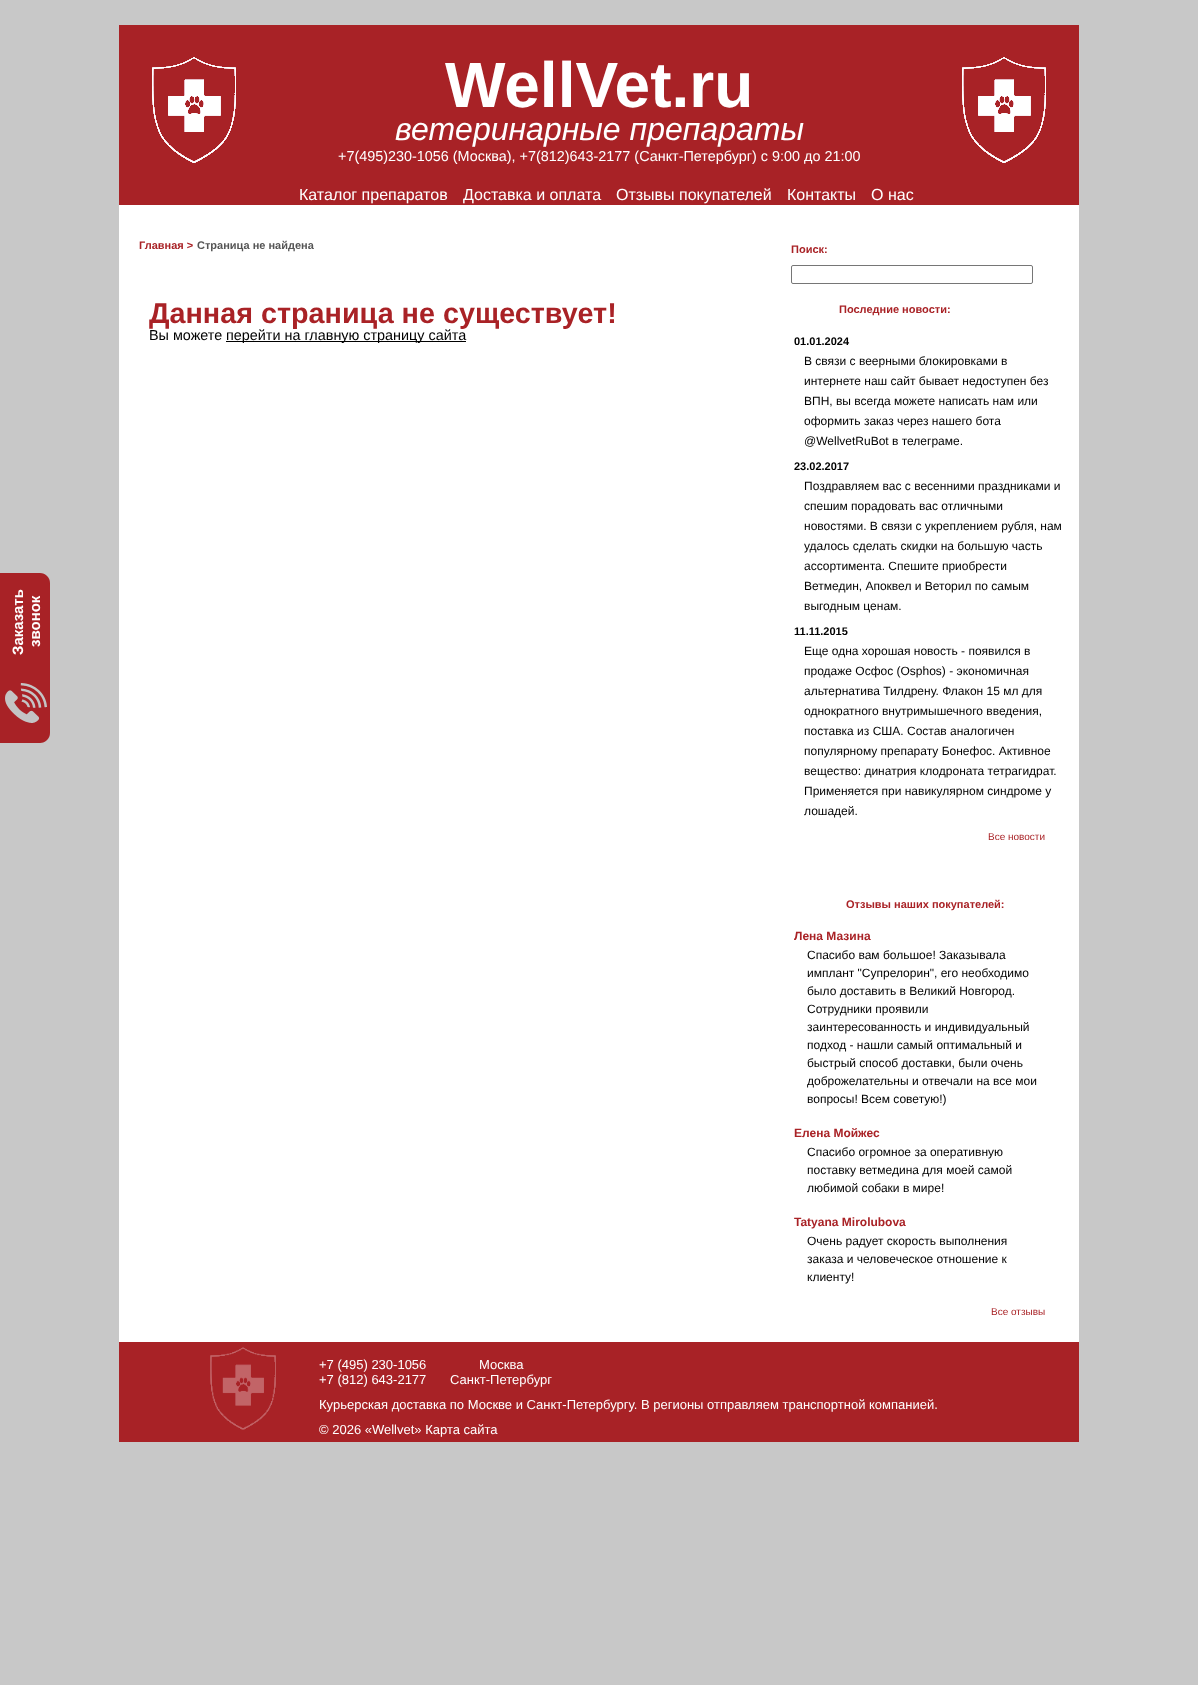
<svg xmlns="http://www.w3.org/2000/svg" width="1198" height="1685">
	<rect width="100%" height="100%" fill="#C8C8C8" />
	<path d="M0 573H40C45.5 573 50 577.5 50 583V733C50 738.5 45.5 743 40 743H0Z" fill="#A82226" />
	<image x="5" y="683" width="42" height="40" href="assets/img1.png" />
	<g font-family="Liberation Sans" font-size="15" font-weight="700" fill="#FFFFFF">
		<text x="23" y="655" transform="rotate(-90 23 655)">Заказать</text>
		<text x="40" y="647" transform="rotate(-90 40 647)">звонок</text>
	</g>
	<rect x="119" y="205" width="960" height="1137" fill="#FFFFFF" />
	<rect x="119" y="25" width="960" height="180" fill="#A82226" />
	<image x="152" y="57" width="84" height="106" href="assets/img2.png" />
	<text x="445" y="107" font-family="Liberation Sans" font-size="64" font-weight="700" fill="#FFFFFF">WellVet.ru</text>
	<text x="395" y="140" font-family="Liberation Sans" font-size="32" font-style="italic" fill="#FFFFFF">ветеринарные препараты</text>
	<text x="338" y="161" font-family="Liberation Sans" font-size="14.4" fill="#FFFFFF">+7(495)230-1056 (Москва), +7(812)643-2177 (Санкт-Петербург) с 9:00 до 21:00</text>
	<image x="962" y="57" width="84" height="106" href="assets/img2.png" />
	<g font-family="Liberation Sans" font-size="16" fill="#FFFFFF">
		<text x="299" y="200">Каталог препаратов</text>
		<text x="463" y="200">Доставка и оплата</text>
		<text x="616" y="200">Отзывы покупателей</text>
		<text x="787" y="200">Контакты</text>
		<text x="871" y="200">О нас</text>
	</g>
	<text x="139" y="249" font-family="Liberation Sans" font-size="11" font-weight="700" fill="#A92226">Главная &gt;</text>
	<text x="197" y="249" font-family="Liberation Sans" font-size="11" font-weight="700" fill="#555555">Страница не найдена</text>
	<text x="149" y="323" font-family="Liberation Sans" font-size="28.75" font-weight="700" fill="#A92226">Данная страница не существует!</text>
	<text x="149" y="340" font-family="Liberation Sans" font-size="14.4" fill="#000000">Вы можете</text>
	<rect x="226" y="341" width="240" height="1" fill="#000000" />
	<text x="226" y="340" font-family="Liberation Sans" font-size="14.4" fill="#000000">перейти на главную страницу сайта</text>
	<text x="791" y="253" font-family="Liberation Sans" font-size="11" font-weight="700" fill="#A92226">Поиск:</text>
	<rect x="791.5" y="265.5" width="241" height="18" rx="1.5" fill="none" stroke="#767676" />
	<text x="839" y="313" font-family="Liberation Sans" font-size="11" font-weight="700" fill="#A92226">Последние новости:</text>
	<text x="794" y="345" font-family="Liberation Sans" font-size="11" font-weight="700" fill="#000000">01.01.2024</text>
	<g font-family="Liberation Sans" font-size="12" fill="#000000">
		<text x="804" y="365">В связи с веерными блокировками в</text>
		<text x="804" y="385">интернете наш сайт бывает недоступен без</text>
		<text x="804" y="405">ВПН, вы всегда можете написать нам или</text>
		<text x="804" y="425">оформить заказ через нашего бота</text>
		<text x="804" y="445">@WellvetRuBot в телеграме.</text>
	</g>
	<text x="794" y="470" font-family="Liberation Sans" font-size="11" font-weight="700" fill="#000000">23.02.2017</text>
	<g font-family="Liberation Sans" font-size="12" fill="#000000">
		<text x="804" y="490">Поздравляем вас с весенними праздниками и</text>
		<text x="804" y="510">спешим порадовать вас отличными</text>
		<text x="804" y="530">новостями. В связи с укреплением рубля, нам</text>
		<text x="804" y="550">удалось сделать скидки на большую часть</text>
		<text x="804" y="570">ассортимента. Спешите приобрести</text>
		<text x="804" y="590">Ветмедин, Апоквел и Веторил по самым</text>
		<text x="804" y="610">выгодным ценам.</text>
	</g>
	<text x="794" y="635" font-family="Liberation Sans" font-size="11" font-weight="700" fill="#000000">11.11.2015</text>
	<g font-family="Liberation Sans" font-size="12" fill="#000000">
		<text x="804" y="655">Еще одна хорошая новость - появился в</text>
		<text x="804" y="675">продаже Осфос (Osphos) - экономичная</text>
		<text x="804" y="695">альтернатива Тилдрену. Флакон 15 мл для</text>
		<text x="804" y="715">однократного внутримышечного введения,</text>
		<text x="804" y="735">поставка из США. Состав аналогичен</text>
		<text x="804" y="755">популярному препарату Бонефос. Активное</text>
		<text x="804" y="775">вещество: динатрия клодроната тетрагидрат.</text>
		<text x="804" y="795">Применяется при навикулярном синдроме у</text>
		<text x="804" y="815">лошадей.</text>
	</g>
	<text x="988" y="840" font-family="Liberation Sans" font-size="10" fill="#A92226">Все новости</text>
	<text x="846" y="908" font-family="Liberation Sans" font-size="11" font-weight="700" fill="#A92226">Отзывы наших покупателей:</text>
	<text x="794" y="940" font-family="Liberation Sans" font-size="12" font-weight="700" fill="#A92226">Лена Мазина</text>
	<g font-family="Liberation Sans" font-size="12" fill="#000000">
		<text x="807" y="959">Спасибо вам большое! Заказывала</text>
		<text x="807" y="977">имплант "Супрелорин", его необходимо</text>
		<text x="807" y="995">было доставить в Великий Новгород.</text>
		<text x="807" y="1013">Сотрудники проявили</text>
		<text x="807" y="1031">заинтересованность и индивидуальный</text>
		<text x="807" y="1049">подход - нашли самый оптимальный и</text>
		<text x="807" y="1067">быстрый способ доставки, были очень</text>
		<text x="807" y="1085">доброжелательны и отвечали на все мои</text>
		<text x="807" y="1103">вопросы! Всем советую!)</text>
	</g>
	<text x="794" y="1137" font-family="Liberation Sans" font-size="12" font-weight="700" fill="#A92226">Елена Мойжес</text>
	<g font-family="Liberation Sans" font-size="12" fill="#000000">
		<text x="807" y="1156">Спасибо огромное за оперативную</text>
		<text x="807" y="1174">поставку ветмедина для моей самой</text>
		<text x="807" y="1192">любимой собаки в мире!</text>
	</g>
	<text x="794" y="1226" font-family="Liberation Sans" font-size="12" font-weight="700" fill="#A92226">Tatyana Mirolubova</text>
	<g font-family="Liberation Sans" font-size="12" fill="#000000">
		<text x="807" y="1245">Очень радует скорость выполнения</text>
		<text x="807" y="1263">заказа и человеческое отношение к</text>
		<text x="807" y="1281">клиенту!</text>
	</g>
	<text x="991" y="1315" font-family="Liberation Sans" font-size="10" fill="#A92226">Все отзывы</text>
	<rect x="119" y="1342" width="960" height="100" fill="#A82226" />
	<image x="210" y="1347" width="66" height="83" href="assets/img3.png" />
	<g font-family="Liberation Sans" font-size="13" fill="#FFFFFF">
		<text x="319" y="1369">+7 (495) 230-1056</text>
		<text x="479" y="1369">Москва</text>
		<text x="319" y="1384">+7 (812) 643-2177</text>
		<text x="450" y="1384">Санкт-Петербург</text>
		<text x="319" y="1409">Курьерская доставка по Москве и Санкт-Петербургу. В регионы отправляем транспортной компанией.</text>
		<text x="319" y="1434">© 2026 «Wellvet» Карта сайта</text>
	</g>
</svg>
